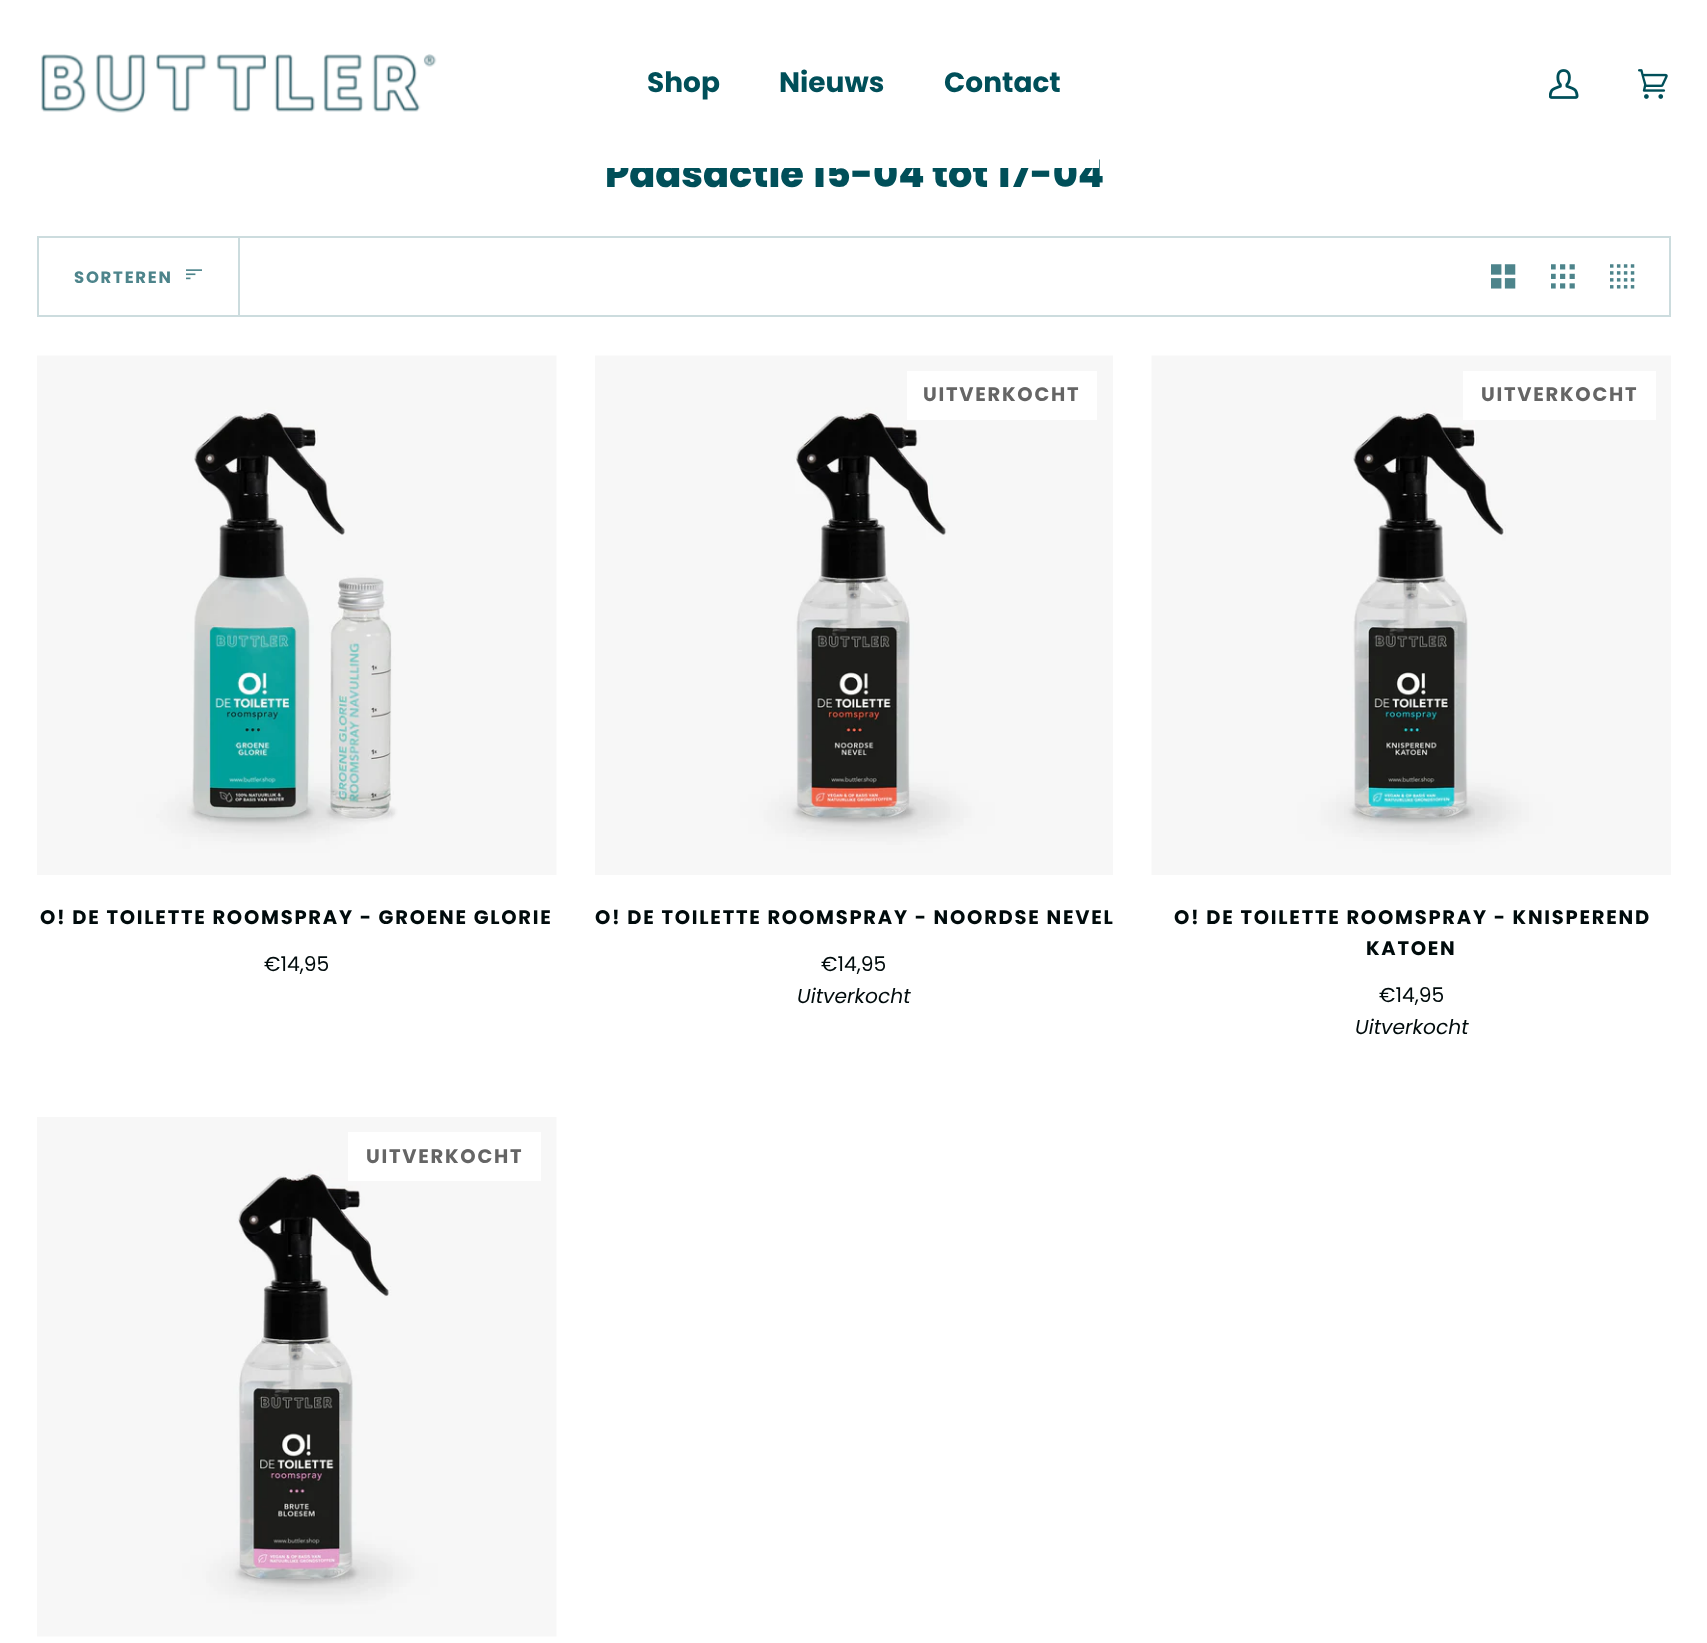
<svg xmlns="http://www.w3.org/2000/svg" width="1707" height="1643">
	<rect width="100%" height="100%" fill="#FFFFFF" />
	<text x="605" y="187" font-family="Poppins" font-size="38.25" font-weight="800" fill="#004F59">Paasactie 15-04 tot 17-04</text>
	<rect x="607" y="155" width="492" height="13" fill="#FFFFFF" />
	<image x="41" y="54" width="396" height="59" href="assets/img1.png" />
	<g font-family="Poppins" font-size="28" font-weight="700" fill="#004F59">
		<text x="647" y="92">Shop</text>
		<text x="779" y="92">Nieuws</text>
		<text x="944" y="92">Contact</text>
	</g>
	<image x="1549" y="69" width="30" height="30" href="assets/img2.png" />
	<image x="1638" y="69" width="30" height="30" href="assets/img3.png" />
	<rect x="38" y="237" width="1632" height="79" fill="none" stroke="#CCDCDE" stroke-width="2" />
	<rect x="238" y="238" width="2" height="77" fill="#CCDCDE" />
	<text x="74" y="283" font-family="Poppins" font-size="16.5" font-weight="700" letter-spacing="1.75" fill="#4D848B">SORTEREN</text>
	<image x="186" y="269" width="16" height="11" href="assets/img4.png" />
	<image x="1491" y="264" width="25" height="25" href="assets/img5.png" />
	<image x="1551" y="264" width="24" height="25" href="assets/img6.png" />
	<image x="1610" y="264" width="25" height="25" href="assets/img7.png" />
	<image x="37" y="355" width="520" height="520" href="assets/img8.png" />
	<text x="40" y="924" font-family="Poppins" font-size="19.5" font-weight="700" letter-spacing="1.75" fill="#000B0C">O! DE TOILETTE ROOMSPRAY - GROENE GLORIE</text>
	<text x="264" y="971" font-family="Poppins" font-size="20.25" fill="#000B0C">€14,95</text>
	<image x="595" y="355" width="518" height="520" href="assets/img9.png" />
	<rect x="907" y="371" width="190" height="49" fill="#FFFFFF" />
	<text x="923" y="401" font-family="Poppins" font-size="19.5" font-weight="700" letter-spacing="1.75" fill="#656565">UITVERKOCHT</text>
	<text x="595" y="924" font-family="Poppins" font-size="19.5" font-weight="700" letter-spacing="1.75" fill="#000B0C">O! DE TOILETTE ROOMSPRAY - NOORDSE NEVEL</text>
	<text x="821" y="971" font-family="Poppins" font-size="20.25" fill="#000B0C">€14,95</text>
	<text x="797" y="1003" font-family="Poppins" font-size="20.25" font-style="italic" fill="#000B0C">Uitverkocht</text>
	<image x="1151" y="355" width="520" height="520" href="assets/img10.png" />
	<rect x="1463" y="371" width="193" height="49" fill="#FFFFFF" />
	<text x="1481" y="401" font-family="Poppins" font-size="19.5" font-weight="700" letter-spacing="1.75" fill="#656565">UITVERKOCHT</text>
	<g font-family="Poppins" font-size="19.5" font-weight="700" letter-spacing="1.75" fill="#000B0C">
		<text x="1174" y="924">O! DE TOILETTE ROOMSPRAY - KNISPEREND</text>
		<text x="1366" y="955">KATOEN</text>
	</g>
	<text x="1379" y="1002" font-family="Poppins" font-size="20.25" fill="#000B0C">€14,95</text>
	<text x="1355" y="1034" font-family="Poppins" font-size="20.25" font-style="italic" fill="#000B0C">Uitverkocht</text>
	<image x="37" y="1117" width="520" height="520" href="assets/img11.png" />
	<rect x="348" y="1132" width="193" height="49" fill="#FFFFFF" />
	<text x="366" y="1163" font-family="Poppins" font-size="19.5" font-weight="700" letter-spacing="1.75" fill="#656565">UITVERKOCHT</text>
</svg>
